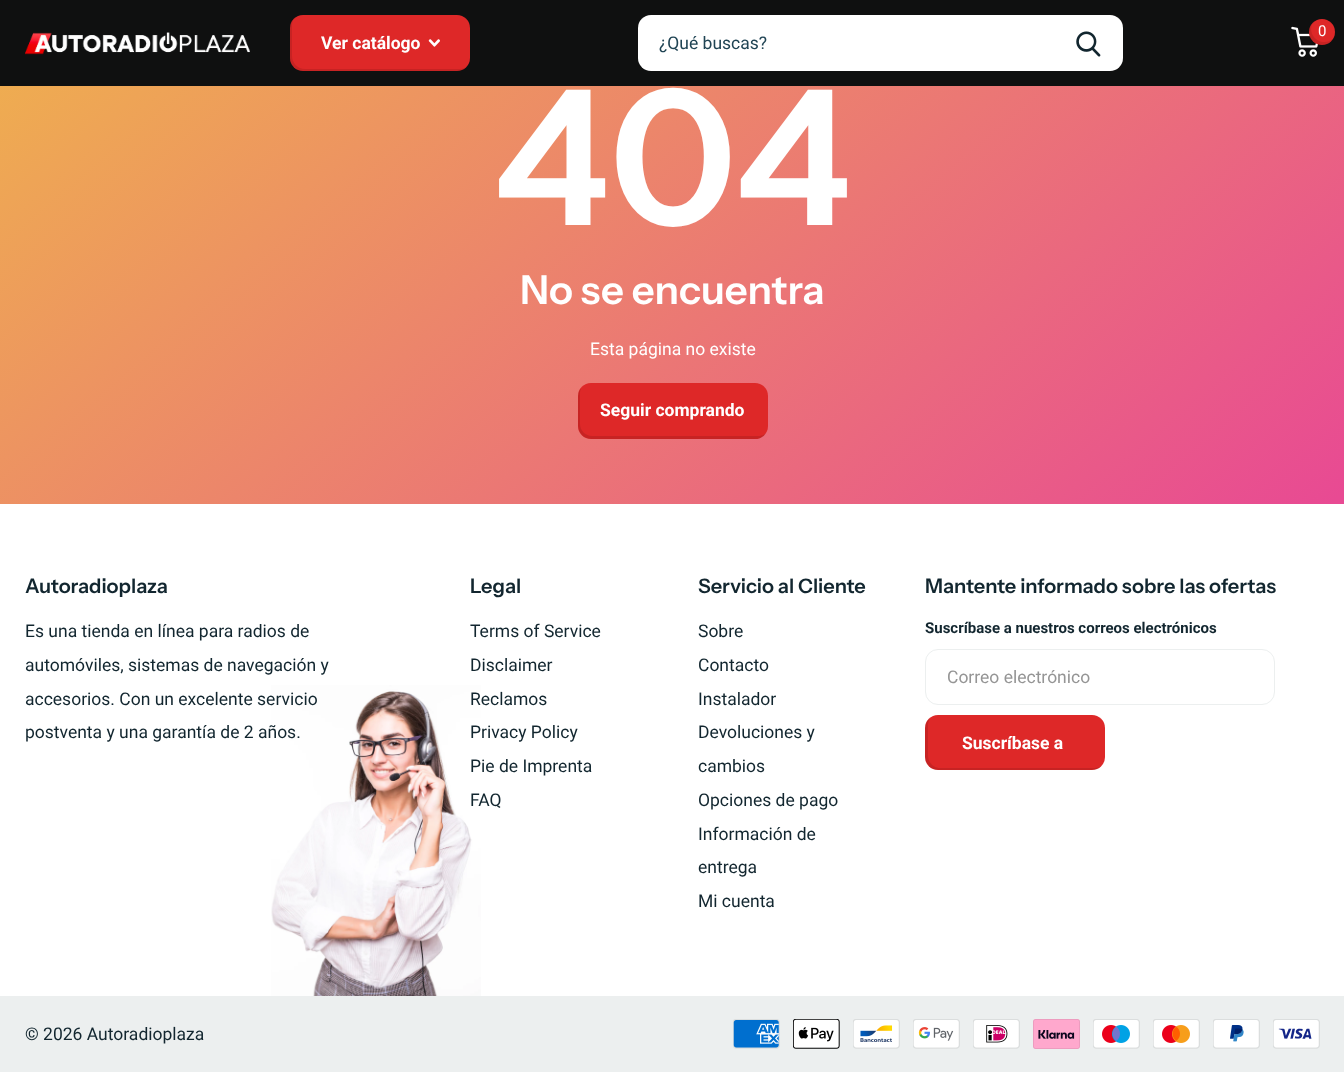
<svg xmlns="http://www.w3.org/2000/svg" width="1344" height="1072">
	<defs>
		<linearGradient id="g1" gradientUnits="userSpaceOnUse" x1="1094" y1="771" x2="251" y2="-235"><stop offset="0.04" stop-color="#E84A93" /><stop offset="1" stop-color="#EFB34C" /></linearGradient>
	</defs>
	<rect width="100%" height="100%" fill="#FFFFFF" />
	<rect x="0" y="0" width="1344" height="86" fill="#0F1010" />
	<image x="1291" y="26" width="27" height="31" href="assets/img1.png" />
	<circle cx="1322" cy="32" r="13" fill="#DE2828" />
	<path d="M1333 39C1322.5 47.5 1306.5 37 1312.5 23C1307 29 1308 38.5 1314.5 43C1320.5 47 1329 45 1333 39Z" fill="#000000" fill-opacity="0.1" />
	<text x="1318" y="36" font-family="Roboto" font-size="15" fill="#FFFFFF">0</text>
	<image x="25" y="32" width="225" height="23" href="assets/img2.png" />
	<rect x="290" y="15" width="180" height="56" rx="13" fill="#DE2828" />
	<path d="M293 19C291 22 290 25 290 28V58C290 65 296 71 303 71H457C461 71 464 70 466 67C464 68 462 69 460 69H305C298 69 292 63 292 56V25C292 23 293 21 293 19Z" fill="#000000" fill-opacity="0.1" />
	<text x="321" y="49" font-family="Roboto" font-size="17.5" font-weight="700" fill="#FFFFFF">Ver catálogo</text>
	<image x="428" y="39" width="12" height="8" href="assets/img3.png" />
	<rect x="638" y="15" width="485" height="56" rx="13" fill="#FFFFFF" />
	<text x="659" y="49" font-family="Roboto" font-size="17.5" fill="#204454">¿Qué buscas?</text>
	<image x="1076" y="31" width="25" height="26" href="assets/img4.png" />
	<rect x="0" y="86" width="1344" height="418" fill="url(#g1)" />
	<text x="494" y="225" font-family="Instrument Sans" font-size="188" font-weight="600" fill="#FFFFFF">404</text>
	<text x="520" y="304" font-family="Instrument Sans" font-size="40" font-weight="600" fill="#FFFFFF">No se encuentra</text>
	<text x="590" y="355" font-family="Roboto" font-size="17.5" fill="#FFFFFF">Esta página no existe</text>
	<rect x="578" y="383" width="190" height="56" rx="13" fill="#DE2828" />
	<path d="M581 388C579 390 578 393 578 396V426C578 433 584 439 591 439H755C760 439 764 437 766 433C764 435 761 436 758 436H592C586 436 580 431 580 424V392Z" fill="#000000" fill-opacity="0.1" />
	<text x="600" y="416" font-family="Roboto" font-size="17.5" font-weight="700" fill="#FFFFFF">Seguir comprando</text>
	<text x="25" y="593" font-family="Instrument Sans" font-size="20" font-weight="600" fill="#12262F">Autoradioplaza</text>
	<g font-family="Roboto" font-size="17.5" fill="#12262F">
		<text x="25" y="637">Es una tienda en línea para radios de</text>
		<text x="25" y="671">automóviles, sistemas de navegación y</text>
	</g>
	<image x="271" y="685" width="210" height="311" href="assets/img5.png" />
	<g font-family="Roboto" font-size="17.5" fill="#12262F">
		<text x="25" y="705">accesorios. Con un excelente servicio</text>
		<text x="25" y="738">postventa y una garantía de 2 años.</text>
	</g>
	<text x="470" y="593" font-family="Instrument Sans" font-size="20" font-weight="600" fill="#12262F">Legal</text>
	<g font-family="Roboto" font-size="17.5" fill="#12262F">
		<text x="470" y="637">Terms of Service</text>
		<text x="470" y="671">Disclaimer</text>
		<text x="470" y="705">Reclamos</text>
		<text x="470" y="738">Privacy Policy</text>
		<text x="470" y="772">Pie de Imprenta</text>
		<text x="470" y="806">FAQ</text>
	</g>
	<text x="698" y="593" font-family="Instrument Sans" font-size="20" font-weight="600" fill="#12262F">Servicio al Cliente</text>
	<g font-family="Roboto" font-size="17.5" fill="#12262F">
		<text x="698" y="637">Sobre</text>
		<text x="698" y="671">Contacto</text>
		<text x="698" y="705">Instalador</text>
		<text x="698" y="738">Devoluciones y</text>
		<text x="698" y="772">cambios</text>
		<text x="698" y="806">Opciones de pago</text>
		<text x="698" y="840">Información de</text>
		<text x="698" y="873">entrega</text>
		<text x="698" y="907">Mi cuenta</text>
	</g>
	<text x="925" y="593" font-family="Instrument Sans" font-size="20" font-weight="600" fill="#12262F">Mantente informado sobre las ofertas</text>
	<text x="925" y="633" font-family="Roboto" font-size="15" font-weight="700" fill="#12262F">Suscríbase a nuestros correos electrónicos</text>
	<rect x="925.5" y="649.5" width="349" height="55" rx="12.5" fill="none" stroke="#ECEFEF" />
	<text x="947" y="683" font-family="Roboto" font-size="17.5" fill="#959595">Correo electrónico</text>
	<rect x="925" y="715" width="180" height="55" rx="13" fill="#DE2828" />
	<path d="M930 718C927 720 925 724 925 728V757C925 764 931 770 938 770H1092C1095 770 1098 769 1101 767C1099 767 1097 768 1095 768H940C933 768 928 762 928 755V725C928 722 929 720 930 718Z" fill="#000000" fill-opacity="0.1" />
	<text x="962" y="749" font-family="Roboto" font-size="17.5" font-weight="700" fill="#FFFFFF">Suscríbase a</text>
	<rect x="0" y="996" width="1344" height="76" fill="#ECEFEF" />
	<text x="25" y="1040" font-family="Roboto" font-size="17.5" fill="#12262F">© 2026 Autoradioplaza</text>
	<image x="733" y="1019" width="47" height="30" href="assets/img6.png" />
	<image x="793" y="1019" width="47" height="30" href="assets/img7.png" />
	<image x="853" y="1019" width="47" height="30" href="assets/img8.png" />
	<image x="913" y="1019" width="47" height="30" href="assets/img9.png" />
	<image x="973" y="1019" width="47" height="30" href="assets/img10.png" />
	<image x="1033" y="1019" width="47" height="30" href="assets/img11.png" />
	<image x="1093" y="1019" width="47" height="30" href="assets/img12.png" />
	<image x="1153" y="1019" width="47" height="30" href="assets/img13.png" />
	<image x="1213" y="1019" width="47" height="30" href="assets/img14.png" />
	<image x="1273" y="1019" width="47" height="30" href="assets/img15.png" />
</svg>
